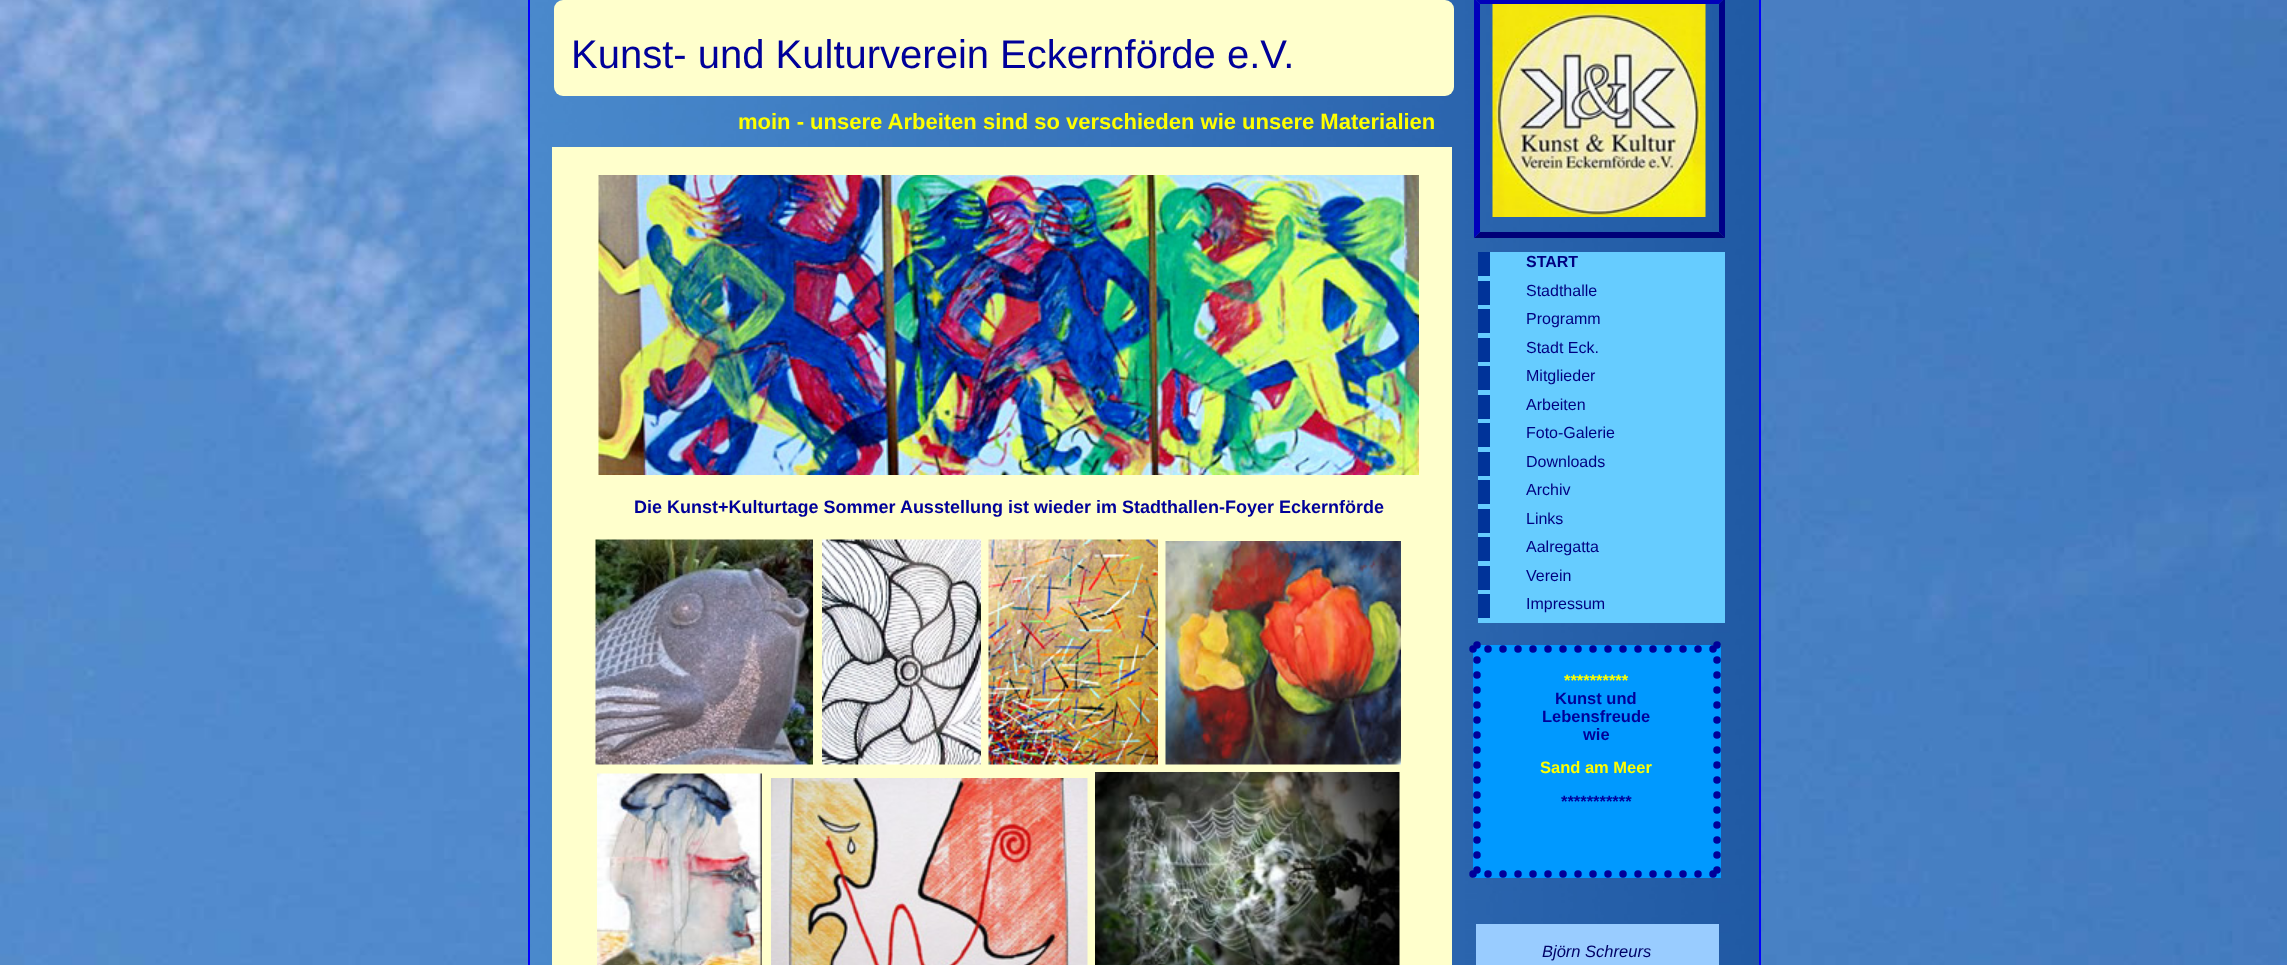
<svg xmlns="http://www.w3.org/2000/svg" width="2287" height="965">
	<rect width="100%" height="100%" fill="#FFFFFF" />
	<image x="0" y="0" width="2287" height="965" href="assets/img1.png" />
	<image x="530" y="0" width="1229" height="965" href="assets/img2.png" />
	<rect x="529" y="-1" width="1231" height="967" fill="none" stroke="#0000FF" stroke-width="2" />
	<rect x="554" y="0" width="900" height="96" rx="9" fill="#FFFFCC" />
	<text x="571" y="68" font-family="Liberation Sans" font-size="40" fill="#000099">Kunst- und Kulturverein Eckernförde e.V.</text>
	<text x="738" y="129" font-family="Liberation Sans" font-size="22" font-weight="700" fill="#FFFF00">moin - unsere Arbeiten sind so verschieden wie unsere Materialien</text>
	<rect x="552" y="147" width="900" height="818" fill="#FFFFCC" />
	<image x="598" y="175" width="821" height="300" href="assets/img3.png" />
	<text x="634" y="513" font-family="Liberation Sans" font-size="18" font-weight="700" fill="#000099">Die Kunst+Kulturtage Sommer Ausstellung ist wieder im Stadthallen-Foyer Eckernförde</text>
	<image x="595" y="539" width="218" height="226" href="assets/img4.png" />
	<image x="822" y="539" width="159" height="226" href="assets/img5.png" />
	<image x="988" y="539" width="170" height="226" href="assets/img6.png" />
	<image x="1165" y="541" width="236" height="224" href="assets/img7.png" />
	<image x="597" y="773" width="165" height="192" href="assets/img8.png" />
	<image x="771" y="778" width="317" height="187" href="assets/img9.png" />
	<image x="1095" y="772" width="305" height="193" href="assets/img10.png" />
	<path d="M1474-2H1725L1719 4H1480Z" fill="#0000BB" />
	<path d="M1725-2V238L1719 232V4Z" fill="#000088" />
	<path d="M1725 238H1474L1480 232H1719Z" fill="#000077" />
	<path d="M1474 238V-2L1480 4V232Z" fill="#0000BB" />
	<image x="1492" y="4" width="214" height="213" href="assets/img11.png" />
	<rect x="1478" y="252" width="247" height="371" fill="#66CCFF" />
	<rect x="1478" y="252" width="12" height="24" fill="#003399" />
	<text x="1526" y="267" font-family="Liberation Sans" font-size="16" font-weight="700" fill="#000080">START</text>
	<rect x="1478" y="281" width="12" height="24" fill="#003399" />
	<text x="1526" y="296" font-family="Liberation Sans" font-size="16" fill="#000080">Stadthalle</text>
	<rect x="1478" y="309" width="12" height="24" fill="#003399" />
	<text x="1526" y="324" font-family="Liberation Sans" font-size="16" fill="#000080">Programm</text>
	<rect x="1478" y="338" width="12" height="24" fill="#003399" />
	<text x="1526" y="353" font-family="Liberation Sans" font-size="16" fill="#000080">Stadt Eck.</text>
	<rect x="1478" y="366" width="12" height="24" fill="#003399" />
	<text x="1526" y="381" font-family="Liberation Sans" font-size="16" fill="#000080">Mitglieder</text>
	<rect x="1478" y="395" width="12" height="24" fill="#003399" />
	<text x="1526" y="410" font-family="Liberation Sans" font-size="16" fill="#000080">Arbeiten</text>
	<rect x="1478" y="423" width="12" height="24" fill="#003399" />
	<text x="1526" y="438" font-family="Liberation Sans" font-size="16" fill="#000080">Foto-Galerie</text>
	<rect x="1478" y="452" width="12" height="24" fill="#003399" />
	<text x="1526" y="467" font-family="Liberation Sans" font-size="16" fill="#000080">Downloads</text>
	<rect x="1478" y="480" width="12" height="24" fill="#003399" />
	<text x="1526" y="495" font-family="Liberation Sans" font-size="16" fill="#000080">Archiv</text>
	<rect x="1478" y="509" width="12" height="24" fill="#003399" />
	<text x="1526" y="524" font-family="Liberation Sans" font-size="16" fill="#000080">Links</text>
	<rect x="1478" y="537" width="12" height="24" fill="#003399" />
	<text x="1526" y="552" font-family="Liberation Sans" font-size="16" fill="#000080">Aalregatta</text>
	<rect x="1478" y="566" width="12" height="24" fill="#003399" />
	<text x="1526" y="581" font-family="Liberation Sans" font-size="16" fill="#000080">Verein</text>
	<rect x="1478" y="594" width="12" height="24" fill="#003399" />
	<text x="1526" y="609" font-family="Liberation Sans" font-size="16" fill="#000080">Impressum</text>
	<rect x="1473" y="645" width="248" height="233" fill="#0099FF" />
	<path d="M1473 649H1720.5" fill="none" stroke="#000099" stroke-width="7.5" stroke-linecap="round" stroke-dasharray="0 15" />
	<path d="M1717 645V877.5" fill="none" stroke="#000099" stroke-width="7.5" stroke-linecap="round" stroke-dasharray="0 15" />
	<path d="M1473 874H1720.5" fill="none" stroke="#000099" stroke-width="7.5" stroke-linecap="round" stroke-dasharray="0 15" />
	<path d="M1477 645V877.5" fill="none" stroke="#000099" stroke-width="7.5" stroke-linecap="round" stroke-dasharray="0 15" />
	<text x="1564" y="686" font-family="Liberation Sans" font-size="16.5" font-weight="700" fill="#FFFF00">**********</text>
	<g font-family="Liberation Sans" font-size="16.5" font-weight="700" fill="#000099">
		<text x="1555" y="704">Kunst und</text>
		<text x="1542" y="722">Lebensfreude</text>
		<text x="1583" y="740">wie</text>
	</g>
	<text x="1540" y="773" font-family="Liberation Sans" font-size="16.5" font-weight="700" fill="#FFFF00">Sand am Meer</text>
	<text x="1561" y="807" font-family="Liberation Sans" font-size="16.5" font-weight="700" fill="#000099">***********</text>
	<rect x="1476" y="924" width="243" height="41" fill="#99CCFF" />
	<text x="1542" y="957" font-family="Liberation Sans" font-size="16.5" font-style="italic" fill="#000066">Björn Schreurs</text>
</svg>
